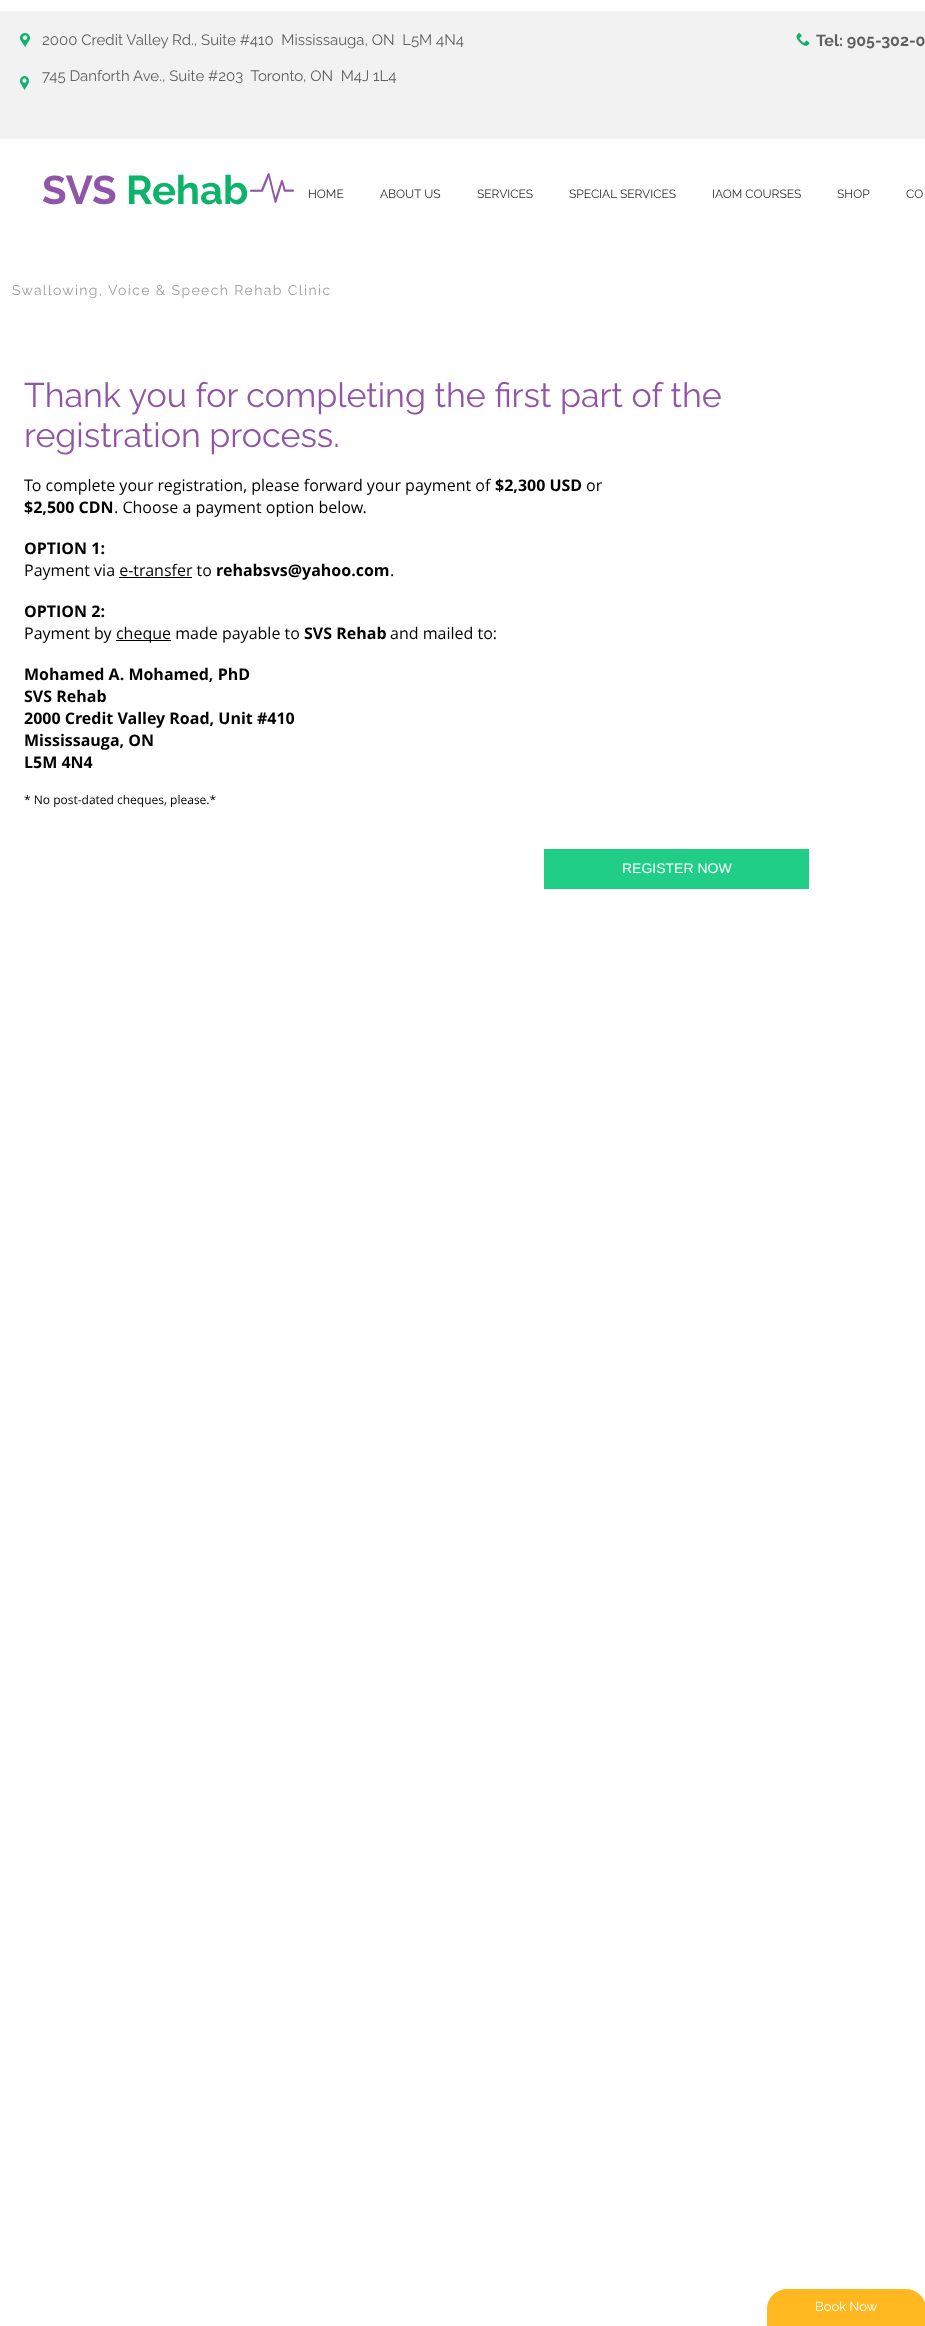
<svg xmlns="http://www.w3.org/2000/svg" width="925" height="2326">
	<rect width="100%" height="100%" fill="#FFFFFF" />
	<rect x="0" y="11" width="925" height="128" fill="#F2F2F2" />
	<image x="20" y="33" width="10" height="14" href="assets/img1.png" />
	<g font-family="Raleway" font-size="15" fill="#605E5E">
		<text x="42" y="45" xml:space="preserve">2000 Credit Valley Rd., Suite #410  Mississauga, ON  L5M 4N4</text>
		<text x="42" y="81" xml:space="preserve">745 Danforth Ave., Suite #203  Toronto, ON  M4J 1L4</text>
	</g>
	<image x="796" y="33" width="14" height="13" href="assets/img2.png" />
	<text x="816" y="46" font-family="Raleway" font-size="16" font-weight="700" fill="#605E5E">Tel: 905-302-0</text>
	<image x="20" y="76" width="9" height="14" href="assets/img3.png" />
	<text x="42" y="204" font-family="Raleway" font-size="40" font-weight="700" fill="#9155A7">SVS</text>
	<text x="126" y="204" font-family="Raleway" font-size="40" font-weight="700" fill="#0DB26B">Rehab</text>
	<image x="250" y="173" width="44" height="30" href="assets/img4.png" />
	<g font-family="Raleway" font-size="12" fill="#2F2E2E">
		<text x="308" y="198">HOME</text>
		<text x="380" y="198">ABOUT US</text>
		<text x="477" y="198">SERVICES</text>
		<text x="569" y="198">SPECIAL SERVICES</text>
		<text x="712" y="198">IAOM COURSES</text>
		<text x="837" y="198">SHOP</text>
		<text x="906" y="198">CO</text>
	</g>
	<text x="12" y="295" font-family="Raleway" font-size="14" letter-spacing="1.25" fill="#A0A09F">Swallowing</text>
	<text x="99" y="295" font-family="Raleway" font-size="14" letter-spacing="1.4" fill="#A0A09F">, Voice &amp; Speech Rehab Clinic</text>
	<g font-family="Raleway" font-size="34" fill="#9155A7">
		<text x="24" y="407">Thank you for completing the first part of the</text>
		<text x="24" y="447">registration process.</text>
	</g>
	<text x="24" y="491" font-family="Open Sans" font-size="16" fill="#000000">To complete your registration, please forward your payment of</text>
	<text x="495" y="491" font-family="Open Sans" font-size="16" font-weight="700" fill="#000000">$2,300 USD</text>
	<text x="586" y="491" font-family="Open Sans" font-size="16" fill="#000000">or</text>
	<text x="24" y="513" font-family="Open Sans" font-size="16" font-weight="700" fill="#000000">$2,500 CDN</text>
	<text x="114" y="513" font-family="Open Sans" font-size="16" fill="#000000">. Choose a payment option below.</text>
	<text x="24" y="554" font-family="Open Sans" font-size="16" font-weight="700" fill="#000000">OPTION 1:</text>
	<text x="24" y="576" font-family="Open Sans" font-size="16" fill="#000000">Payment via e-transfer to</text>
	<rect x="119" y="577" width="73" height="1" fill="#000000" />
	<text x="216" y="576" font-family="Open Sans" font-size="16" font-weight="700" fill="#000000">rehabsvs@yahoo.com</text>
	<text x="390" y="576" font-family="Open Sans" font-size="16" fill="#000000">.</text>
	<text x="24" y="617" font-family="Open Sans" font-size="16" font-weight="700" fill="#000000">OPTION 2:</text>
	<text x="24" y="639" font-family="Open Sans" font-size="16" fill="#000000">Payment by</text>
	<rect x="116" y="640" width="55" height="1" fill="#000000" />
	<text x="116" y="639" font-family="Open Sans" font-size="16" fill="#000000">cheque made payable to</text>
	<text x="304" y="639" font-family="Open Sans" font-size="16" font-weight="700" fill="#000000">SVS Rehab</text>
	<text x="390" y="639" font-family="Open Sans" font-size="16" fill="#000000">and mailed to:</text>
	<g font-family="Open Sans" font-size="16" font-weight="700" fill="#000000">
		<text x="24" y="680">Mohamed A. Mohamed, PhD</text>
		<text x="24" y="702">SVS Rehab</text>
		<text x="24" y="724">2000 Credit Valley Road, Unit #410</text>
		<text x="24" y="746">Mississauga, ON</text>
		<text x="24" y="768">L5M 4N4</text>
	</g>
	<text x="24" y="804" font-family="Open Sans" font-size="12" fill="#000000">* No post-dated cheques, please.*</text>
	<rect x="544" y="849" width="265" height="40" fill="#20CE88" />
	<text x="622" y="873" font-family="Liberation Sans" font-size="14" fill="#FFFFFF">REGISTER NOW</text>
	<path d="M787 2289H906C917 2289 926 2298 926 2309V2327H767V2309C767 2298 776 2289 787 2289Z" fill="#FFB81F" />
	<text x="815" y="2311" font-family="Raleway" font-size="13" fill="#FFFFFF">Book Now</text>
</svg>
